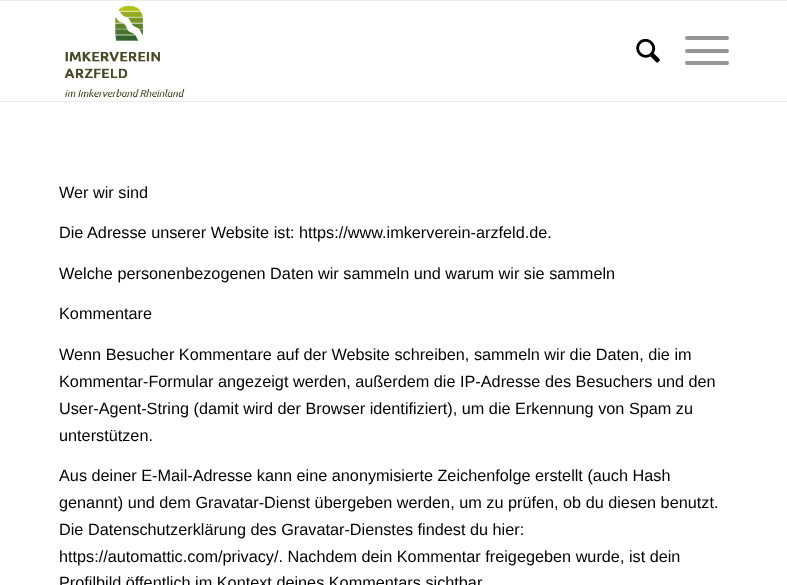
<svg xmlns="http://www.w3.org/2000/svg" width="787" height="585">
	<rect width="100%" height="100%" fill="#FFFFFF" />
	<rect x="0" y="0" width="787" height="1" fill="#EBEBEB" />
	<rect x="0" y="101" width="787" height="1" fill="#EBEBEB" />
	<image x="64" y="5" width="121" height="92" href="assets/img1.png" />
	<image x="636" y="38" width="24" height="25" href="assets/img2.png" />
	<rect x="685" y="49" width="44" height="4" rx="2" fill="#969696" />
	<rect x="685" y="36" width="44" height="4" rx="2" fill="#969696" />
	<rect x="685" y="61" width="44" height="4" rx="2" fill="#969696" />
	<g font-family="Liberation Sans" font-size="16.25" fill="#000000">
		<text x="59" y="198">Wer wir sind</text>
		<text x="59" y="238">Die Adresse unserer Website ist: https://www.imkerverein-arzfeld.de.</text>
		<text x="59" y="279">Welche personenbezogenen Daten wir sammeln und warum wir sie sammeln</text>
		<text x="59" y="319">Kommentare</text>
		<text x="59" y="360">Wenn Besucher Kommentare auf der Website schreiben, sammeln wir die Daten, die im</text>
		<text x="59" y="387">Kommentar-Formular angezeigt werden, außerdem die IP-Adresse des Besuchers und den</text>
		<text x="59" y="414">User-Agent-String (damit wird der Browser identifiziert), um die Erkennung von Spam zu</text>
		<text x="59" y="441">unterstützen.</text>
		<text x="59" y="481">Aus deiner E-Mail-Adresse kann eine anonymisierte Zeichenfolge erstellt (auch Hash</text>
		<text x="59" y="508">genannt) und dem Gravatar-Dienst übergeben werden, um zu prüfen, ob du diesen benutzt.</text>
		<text x="59" y="535">Die Datenschutzerklärung des Gravatar-Dienstes findest du hier:</text>
		<text x="59" y="562">https://automattic.com/privacy/. Nachdem dein Kommentar freigegeben wurde, ist dein</text>
		<text x="59" y="588">Profilbild öffentlich im Kontext deines Kommentars sichtbar.</text>
	</g>
</svg>
